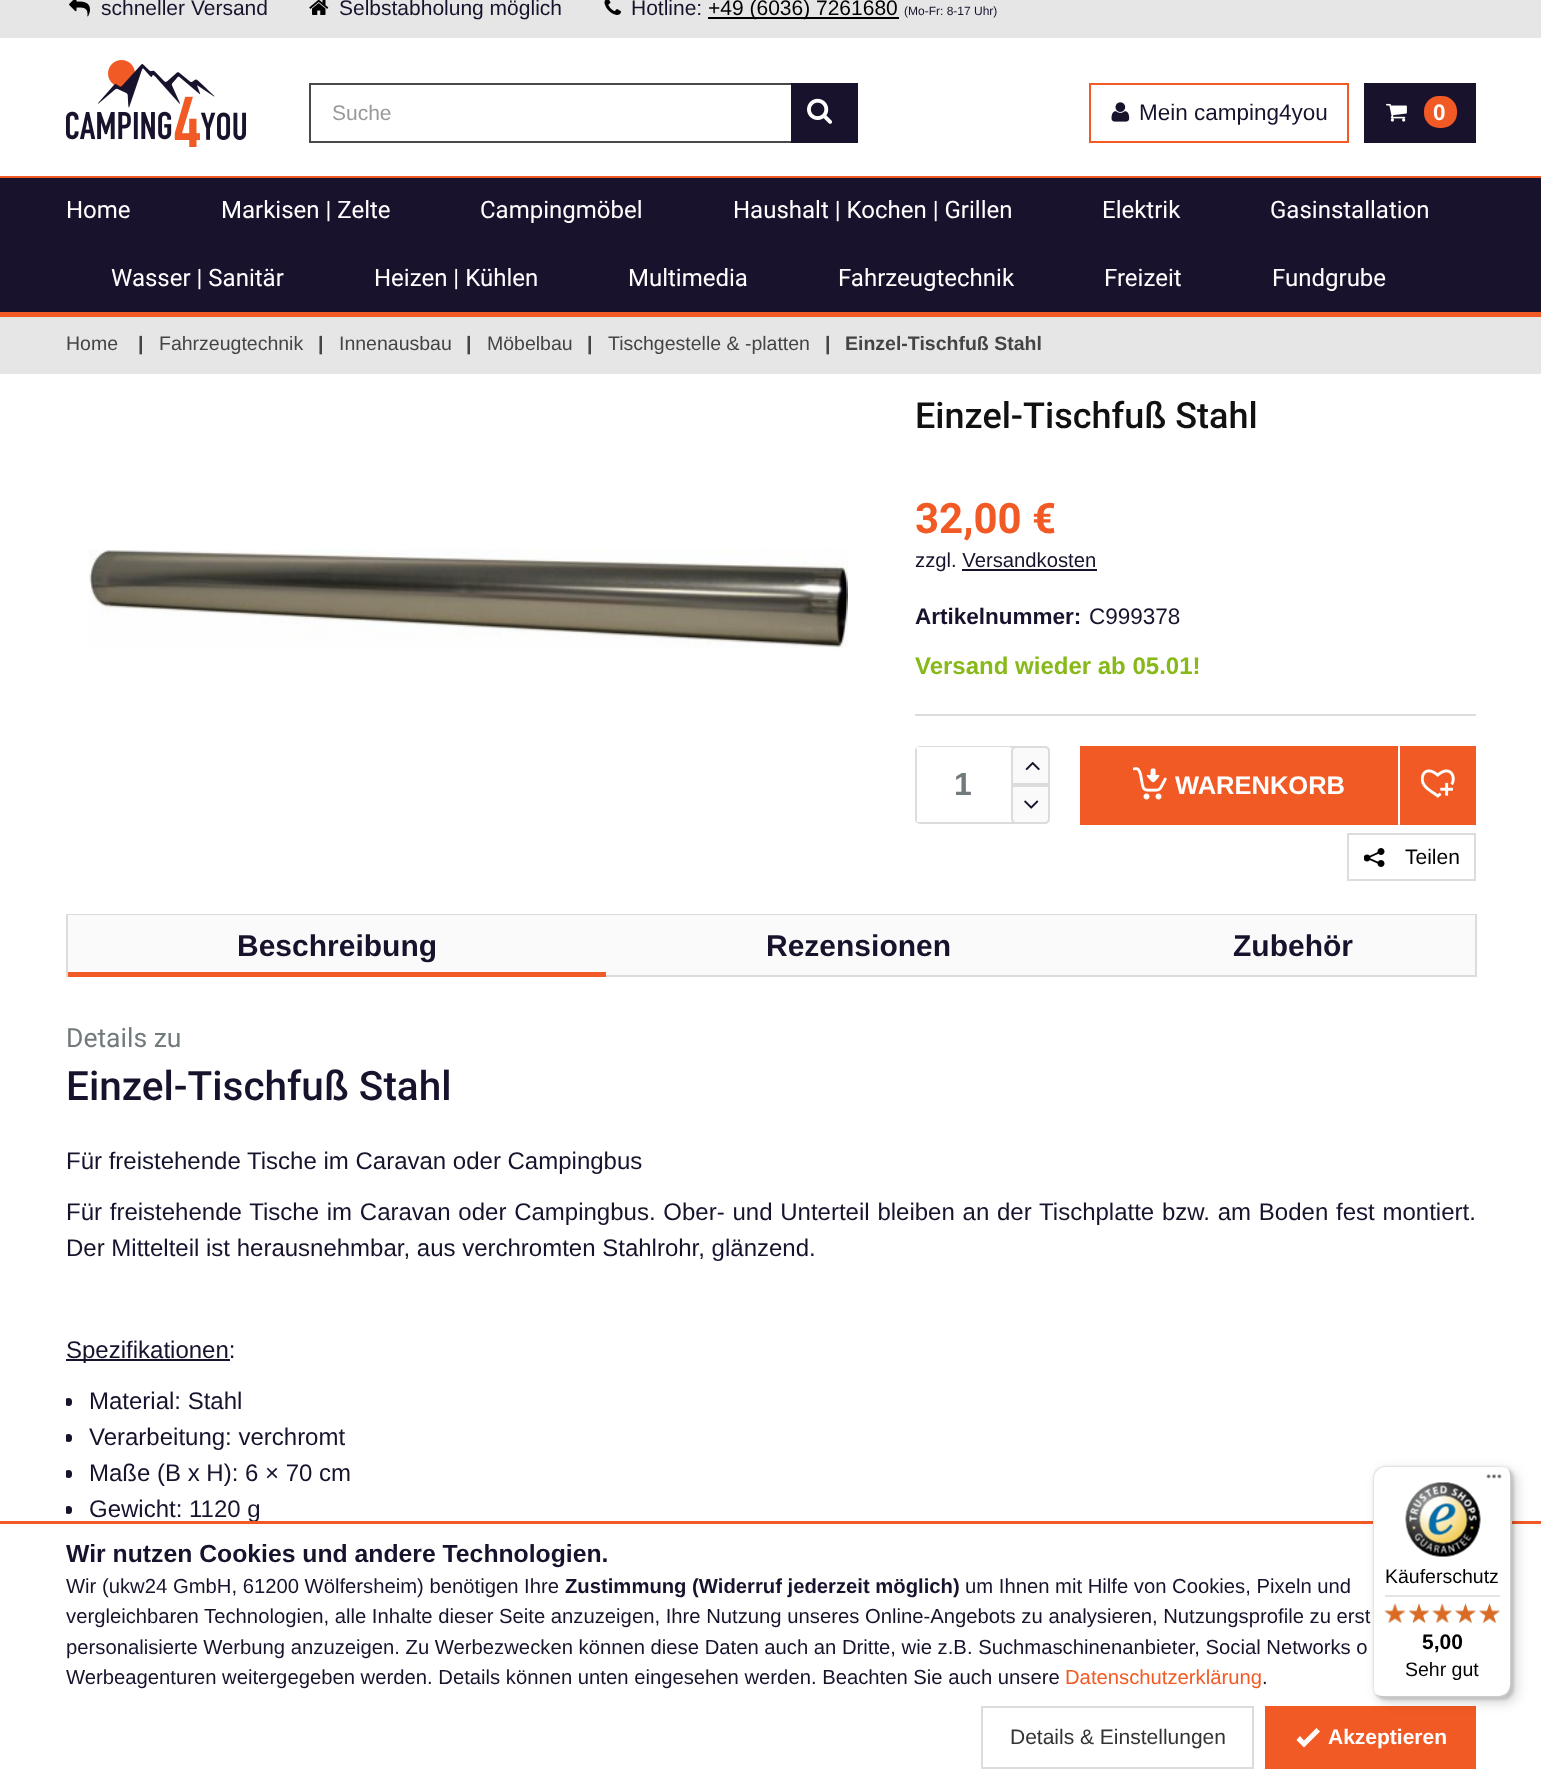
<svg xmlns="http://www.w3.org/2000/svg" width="1541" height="1778">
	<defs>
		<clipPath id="clip1"><rect x="66" y="978" width="1410" height="762" /></clipPath>
	</defs>
	<rect width="100%" height="100%" fill="#FFFFFF" />
	<rect x="0" y="0" width="1541" height="38" fill="#E6E6E6" />
	<image x="69" y="0" width="21" height="17" href="assets/img1.png" />
	<text x="101" y="15" font-family="Liberation Sans" font-size="21" fill="#19122D">schneller Versand</text>
	<image x="309" y="0" width="20" height="15" href="assets/img2.png" />
	<text x="339" y="15" font-family="Liberation Sans" font-size="21" fill="#19122D">Selbstabholung möglich</text>
	<image x="604" y="0" width="17" height="15" href="assets/img3.png" />
	<text x="631" y="15" font-family="Liberation Sans" font-size="21" fill="#19122D">Hotline:</text>
	<rect x="708" y="17" width="191" height="2" fill="#000000" />
	<text x="708" y="15" font-family="Liberation Sans" font-size="21" fill="#000000">+49 (6036) 7261680</text>
	<text x="904" y="15" font-family="Liberation Sans" font-size="12" fill="#19122D">(Mo-Fr: 8-17 Uhr)</text>
	<image x="66" y="60" width="180" height="87" href="assets/img4.png" />
	<rect x="309" y="83" width="483" height="2" fill="#494949" />
	<rect x="309" y="141" width="483" height="2" fill="#494949" />
	<rect x="309" y="83" width="2" height="60" fill="#494949" />
	<text x="332" y="120" font-family="Liberation Sans" font-size="21" fill="#999999">Suche</text>
	<rect x="791" y="83" width="67" height="60" fill="#19122D" />
	<image x="807" y="98" width="25" height="26" href="assets/img5.png" />
	<rect x="1090" y="84" width="258" height="58" fill="none" stroke="#F15A24" stroke-width="2" />
	<image x="1111" y="102" width="19" height="20" href="assets/img6.png" />
	<text x="1139" y="120" font-family="Liberation Sans" font-size="22.5" fill="#19122D">Mein camping4you</text>
	<rect x="1364" y="83" width="112" height="60" fill="#19122D" />
	<image x="1386" y="103" width="21" height="19" href="assets/img7.png" />
	<rect x="1424" y="96" width="33" height="32" rx="15" fill="#F15A24" />
	<text x="1433" y="120" font-family="Liberation Sans" font-size="22.5" font-weight="700" fill="#FFFFFF">0</text>
	<rect x="0" y="178" width="1541" height="134" fill="#19122D" />
	<rect x="0" y="176" width="1541" height="2" fill="#F15A24" />
	<rect x="0" y="312" width="1541" height="5" fill="#F15A24" />
	<g font-family="Roboto" font-size="24" fill="#FFFFFF">
		<text x="66" y="218">Home</text>
		<text x="221" y="218">Markisen | Zelte</text>
		<text x="480" y="218">Campingmöbel</text>
		<text x="733" y="218">Haushalt | Kochen | Grillen</text>
		<text x="1102" y="218">Elektrik</text>
		<text x="1270" y="218">Gasinstallation</text>
		<text x="111" y="286">Wasser | Sanitär</text>
		<text x="374" y="286">Heizen | Kühlen</text>
		<text x="628" y="286">Multimedia</text>
		<text x="838" y="286">Fahrzeugtechnik</text>
		<text x="1104" y="286">Freizeit</text>
		<text x="1272" y="286">Fundgrube</text>
	</g>
	<rect x="0" y="317" width="1541" height="57" fill="#E6E6E6" />
	<text x="66" y="350" font-family="Liberation Sans" font-size="19.5" fill="#444444">Home</text>
	<text x="138" y="350" font-family="Liberation Sans" font-size="19.5" font-weight="700" fill="#444444">|</text>
	<text x="159" y="350" font-family="Liberation Sans" font-size="19.5" fill="#444444">Fahrzeugtechnik</text>
	<text x="318" y="350" font-family="Liberation Sans" font-size="19.5" font-weight="700" fill="#444444">|</text>
	<text x="339" y="350" font-family="Liberation Sans" font-size="19.5" fill="#444444">Innenausbau</text>
	<text x="466" y="350" font-family="Liberation Sans" font-size="19.5" font-weight="700" fill="#444444">|</text>
	<text x="487" y="350" font-family="Liberation Sans" font-size="19.5" fill="#444444">Möbelbau</text>
	<text x="587" y="350" font-family="Liberation Sans" font-size="19.5" font-weight="700" fill="#444444">|</text>
	<text x="608" y="350" font-family="Liberation Sans" font-size="19.5" fill="#444444">Tischgestelle &amp; -platten</text>
	<g font-family="Liberation Sans" font-size="19.5" font-weight="700" fill="#444444">
		<text x="825" y="350">|</text>
		<text x="845" y="350">Einzel-Tischfuß Stahl</text>
	</g>
	<text x="915" y="428" font-family="Roboto" font-size="36" font-weight="500" fill="#111111">Einzel-Tischfuß Stahl</text>
	<image x="89" y="549" width="759" height="100" href="assets/img8.png" />
	<text x="915" y="533" font-family="Roboto" font-size="42" font-weight="700" fill="#F15A24">32,00 €</text>
	<text x="915" y="567" font-family="Liberation Sans" font-size="20.25" fill="#19122D">zzgl. Versandkosten</text>
	<rect x="962" y="569" width="135" height="2" fill="#19122D" />
	<text x="915" y="624" font-family="Liberation Sans" font-size="22.5" font-weight="700" fill="#19122D">Artikelnummer:</text>
	<text x="1089" y="624" font-family="Liberation Sans" font-size="22.5" fill="#19122D">C999378</text>
	<text x="915" y="674" font-family="Liberation Sans" font-size="24" font-weight="700" fill="#87B919">Versand wieder ab 05.01!</text>
	<rect x="915" y="714" width="561" height="2" fill="#DCDCDC" />
	<rect x="916" y="747" width="133" height="76" rx="4" fill="none" stroke="#DCDCDC" stroke-width="2" />
	<rect x="917" y="747" width="93" height="75" fill="#FFFFFF" />
	<text x="954" y="795" font-family="Liberation Sans" font-size="32" font-weight="700" fill="#727B7C">1</text>
	<path d="M1016 747H1045C1047 747 1049 749 1049 751V784H1012V751C1012 749 1014 747 1016 747Z" fill="#FAFAFA" stroke="#DCDCDC" stroke-width="2" />
	<image x="1025" y="761" width="15" height="10" href="assets/img9.png" />
	<path d="M1012 786H1049V819C1049 821 1047 823 1045 823H1016C1014 823 1012 821 1012 819Z" fill="#FAFAFA" stroke="#DCDCDC" stroke-width="2" />
	<image x="1024" y="800" width="15" height="9" href="assets/img10.png" />
	<rect x="1080" y="746" width="318" height="79" fill="#F15A24" />
	<image x="1133" y="767" width="34" height="33" href="assets/img11.png" />
	<text x="1175" y="794" font-family="Liberation Sans" font-size="25.5" font-weight="700" fill="#FFFFFF">WARENKORB</text>
	<rect x="1400" y="746" width="76" height="79" fill="#F15A24" />
	<image x="1421" y="769" width="34" height="29" href="assets/img12.png" />
	<rect x="1348" y="834" width="127" height="46" fill="none" stroke="#DCDCDC" stroke-width="2" />
	<image x="1364" y="848" width="21" height="19" href="assets/img13.png" />
	<text x="1405" y="864" font-family="Liberation Sans" font-size="21" fill="#000000">Teilen</text>
	<rect x="606" y="975" width="870" height="2" fill="#DCDCDC" />
	<rect x="66" y="914" width="1410" height="1" fill="#DCDCDC" />
	<rect x="1475" y="914" width="2" height="63" fill="#DCDCDC" />
	<rect x="66" y="914" width="2" height="63" fill="#DCDCDC" />
	<rect x="68" y="915" width="538" height="57" fill="#FAFAFA" />
	<text x="237" y="956" font-family="Liberation Sans" font-size="30" font-weight="700" fill="#19122D">Beschreibung</text>
	<rect x="606" y="915" width="869" height="60" fill="#FAFAFA" />
	<g font-family="Liberation Sans" font-size="30" font-weight="700" fill="#19122D">
		<text x="766" y="956">Rezensionen</text>
		<text x="1233" y="956">Zubehör</text>
	</g>
	<rect x="68" y="972" width="538" height="5" fill="#F15A24" />
	<text x="66" y="1047" font-family="Roboto" font-size="26.5" fill="#727B7C">Details zu</text>
	<text x="66" y="1100" font-family="Roboto" font-size="40.5" font-weight="500" fill="#19122D">Einzel-Tischfuß Stahl</text>
	<g font-family="Liberation Sans" font-size="24" fill="#19122D">
		<text x="66" y="1169">Für freistehende Tische im Caravan oder Campingbus</text>
		<text x="66" y="1220" word-spacing="1.1">Für freistehende Tische im Caravan oder Campingbus. Ober- und Unterteil bleiben an der Tischplatte bzw. am Boden fest montiert.</text>
		<text x="66" y="1256">Der Mittelteil ist herausnehmbar, aus verchromten Stahlrohr, glänzend.</text>
	</g>
	<rect x="66" y="1359" width="164" height="2" fill="#19122D" />
	<text x="66" y="1358" font-family="Liberation Sans" font-size="24" fill="#19122D">Spezifikationen:</text>
	<g clip-path="url(#clip1)">
		<rect x="65" y="1398" width="7" height="8" rx="3.5" fill="#19122D" />
	</g>
	<text x="89" y="1409" font-family="Liberation Sans" font-size="24" fill="#19122D">Material: Stahl</text>
	<g clip-path="url(#clip1)">
		<rect x="65" y="1434" width="7" height="8" rx="3.5" fill="#19122D" />
	</g>
	<text x="89" y="1445" font-family="Liberation Sans" font-size="24" fill="#19122D">Verarbeitung: verchromt</text>
	<g clip-path="url(#clip1)">
		<rect x="65" y="1470" width="7" height="8" rx="3.5" fill="#19122D" />
	</g>
	<text x="89" y="1481" font-family="Liberation Sans" font-size="24" fill="#19122D">Maße (B x H): 6 × 70 cm</text>
	<g clip-path="url(#clip1)">
		<rect x="65" y="1506" width="7" height="8" rx="3.5" fill="#19122D" />
	</g>
	<text x="89" y="1517" font-family="Liberation Sans" font-size="24" fill="#19122D">Gewicht: 1120 g</text>
	<rect x="0" y="1521" width="1541" height="3" fill="#F15A24" />
	<text x="66" y="1562" font-family="Liberation Sans" font-size="24.75" font-weight="700" fill="#19122D">Wir nutzen Cookies und andere Technologien.</text>
	<text x="66" y="1593" font-family="Liberation Sans" font-size="20.25" fill="#19122D">Wir (ukw24 GmbH, 61200 Wölfersheim) benötigen Ihre</text>
	<text x="565" y="1593" font-family="Liberation Sans" font-size="20.25" font-weight="700" fill="#19122D">Zustimmung (Widerruf jederzeit möglich)</text>
	<g font-family="Liberation Sans" font-size="20.25" fill="#19122D">
		<text x="965" y="1593">um Ihnen mit Hilfe von Cookies, Pixeln und</text>
		<text x="66" y="1623">vergleichbaren Technologien, alle Inhalte dieser Seite anzuzeigen, Ihre Nutzung unseres Online-Angebots zu analysieren, Nutzungsprofile zu erst</text>
		<text x="66" y="1654">personalisierte Werbung anzuzeigen. Zu Werbezwecken können diese Daten auch an Dritte, wie z.B. Suchmaschinenanbieter, Social Networks o</text>
		<text x="66" y="1684">Werbeagenturen weitergegeben werden. Details können unten eingesehen werden. Beachten Sie auch unsere</text>
	</g>
	<text x="1065" y="1684" font-family="Liberation Sans" font-size="20.25" fill="#F15A24">Datenschutzerklärung</text>
	<text x="1262" y="1684" font-family="Liberation Sans" font-size="20.25" fill="#19122D">.</text>
	<rect x="982" y="1707" width="271" height="61" fill="none" stroke="#DCDCDC" stroke-width="2" />
	<text x="1010" y="1744" font-family="Liberation Sans" font-size="21" fill="#333333">Details &amp; Einstellungen</text>
	<rect x="1265" y="1706" width="211" height="63" fill="#F15A24" />
	<path d="M1304 1747.5L1296.5 1740L1300 1736L1304 1740.5L1316.5 1728L1320 1731.5Z" fill="#FFFFFF" />
	<text x="1328" y="1744" font-family="Liberation Sans" font-size="21" font-weight="700" fill="#FFFFFF">Akzeptieren</text>
	<rect x="1377" y="1470" width="140" height="233" rx="12" fill="#000000" fill-opacity="0.15" filter="blur(6px)" />
	<rect x="1374" y="1467" width="140" height="233" rx="12" fill="#000000" fill-opacity="0.15" filter="blur(1.5px)" />
	<rect x="1373" y="1466" width="139" height="232" rx="12" fill="#FFFFFF" />
	<path d="M1386 1467H1502L1507 1468C1505 1467 1502 1466 1500 1466H1385C1378 1466 1373 1471 1373 1478V1686C1373 1688 1374 1691 1375 1693L1374 1688V1479C1374 1472 1379 1467 1386 1467Z" fill="#E5E5E5" />
	<path d="M1376 1694C1378 1696 1381 1698 1385 1698H1500C1507 1698 1512 1693 1512 1686V1478C1512 1474 1510 1471 1508 1469C1509 1471 1510 1473 1510 1476V1684C1510 1691 1505 1696 1498 1696H1383C1380 1696 1378 1695 1376 1694Z" fill="#000000" fill-opacity="0.2" />
	<path d="M1377 1695C1379 1697 1382 1698 1385 1698H1500C1507 1698 1512 1693 1512 1686V1478C1512 1475 1511 1472 1509 1470C1510 1472 1511 1474 1511 1477V1685C1511 1692 1506 1697 1499 1697H1384C1381 1697 1379 1696 1377 1695Z" fill="#323232" fill-opacity="0.2" />
	<path d="M1377 1695C1379 1697 1382 1698 1385 1698H1500C1507 1698 1512 1693 1512 1686V1478C1512 1475 1511 1472 1509 1470C1510 1472 1511 1474 1511 1477V1685C1511 1692 1506 1697 1499 1697H1384C1381 1697 1379 1696 1377 1695Z" fill="#FFFFFF" fill-opacity="0.3" />
	<image x="1486" y="1474" width="16" height="5" href="assets/img14.png" />
	<image x="1405" y="1482" width="76" height="75" href="assets/img15.png" />
	<text x="1385" y="1583" font-family="Liberation Sans" font-size="19.5" fill="#000000">Käuferschutz</text>
	<rect x="1385" y="1595" width="115" height="2" fill="#E5E5E5" />
	<image x="1385" y="1604" width="20" height="19" href="assets/img21.png" />
	<image x="1384" y="1603" width="22" height="20" href="assets/img16.png" />
	<image x="1409" y="1603" width="20" height="20" href="assets/img22.png" />
	<image x="1409" y="1603" width="20" height="20" href="assets/img17.png" />
	<image x="1432" y="1603" width="20" height="20" href="assets/img23.png" />
	<image x="1432" y="1603" width="20" height="20" href="assets/img18.png" />
	<image x="1455" y="1603" width="21" height="20" href="assets/img24.png" />
	<image x="1455" y="1603" width="21" height="20" href="assets/img19.png" />
	<image x="1479" y="1604" width="21" height="19" href="assets/img25.png" />
	<image x="1479" y="1603" width="21" height="20" href="assets/img20.png" />
	<text x="1422" y="1649" font-family="Liberation Sans" font-size="21" font-weight="700" fill="#000000">5,00</text>
	<text x="1405" y="1676" font-family="Liberation Sans" font-size="19.5" fill="#000000">Sehr gut</text>
</svg>
